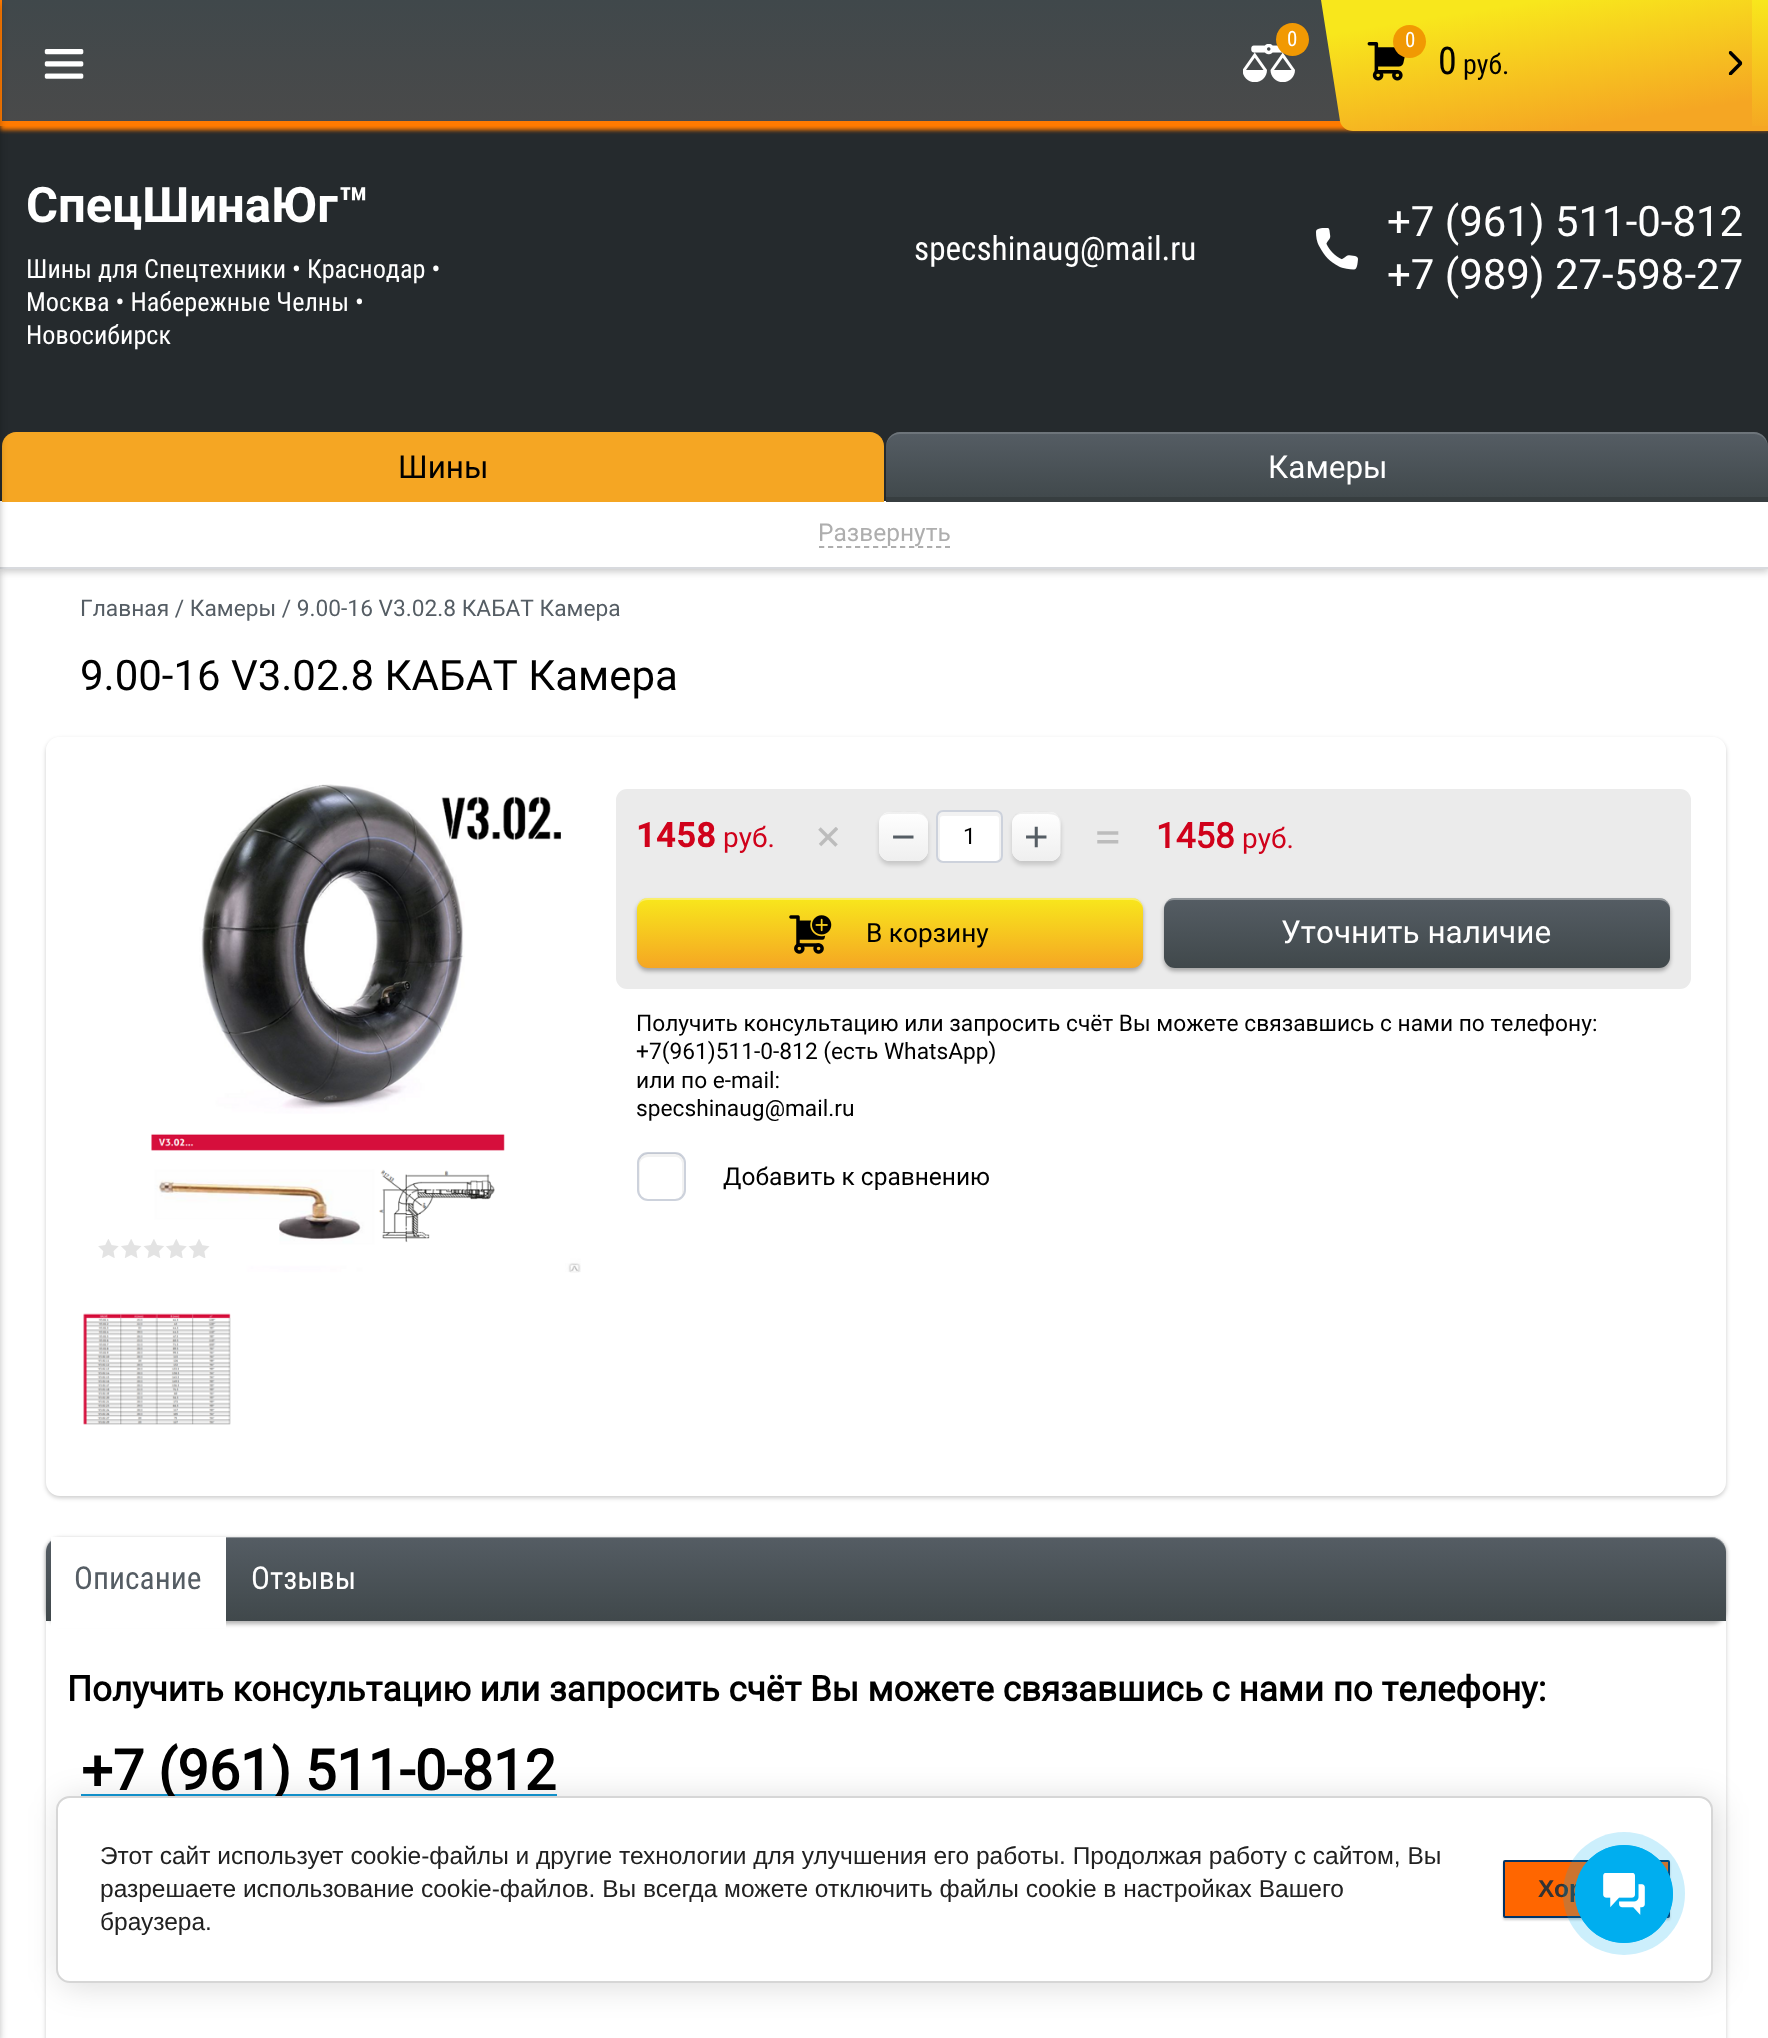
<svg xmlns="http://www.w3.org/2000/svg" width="1768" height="2038">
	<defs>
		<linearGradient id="g1" gradientUnits="userSpaceOnUse" x1="885" y1="126" x2="885" y2="0"><stop offset="0" stop-color="#4A4A4A" /><stop offset="1" stop-color="#40484B" /></linearGradient>
		<clipPath id="clip1"><rect x="0" y="0" width="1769" height="126" /></clipPath>
		<linearGradient id="g2" gradientUnits="userSpaceOnUse" x1="1540" y1="0" x2="1561" y2="131"><stop offset="0" stop-color="#F8E71C" /><stop offset="1" stop-color="#F5A623" /></linearGradient>
		<linearGradient id="g3" gradientUnits="userSpaceOnUse" x1="1761" y1="0" x2="1761" y2="131"><stop offset="0" stop-color="#F8E71C" /><stop offset="1" stop-color="#F5A623" /></linearGradient>
		<linearGradient id="g4" gradientUnits="userSpaceOnUse" x1="1327" y1="432" x2="1327" y2="502"><stop offset="0" stop-color="#555D64" /><stop offset="0.98" stop-color="#40484B" /></linearGradient>
		<linearGradient id="g5" gradientUnits="userSpaceOnUse" x1="903" y1="812" x2="903" y2="861"><stop offset="0" stop-color="#EFEFEF" stop-opacity="0" /><stop offset="1" stop-color="#EFEFEF" /></linearGradient>
		<linearGradient id="g6" gradientUnits="userSpaceOnUse" x1="1036" y1="812" x2="1036" y2="861"><stop offset="0" stop-color="#EFEFEF" stop-opacity="0" /><stop offset="1" stop-color="#EFEFEF" /></linearGradient>
		<linearGradient id="g7" gradientUnits="userSpaceOnUse" x1="890" y1="898" x2="890" y2="968"><stop offset="0" stop-color="#F8E71C" /><stop offset="1" stop-color="#F5A623" /></linearGradient>
		<linearGradient id="g8" gradientUnits="userSpaceOnUse" x1="1417" y1="898" x2="1417" y2="968"><stop offset="0" stop-color="#555D64" /><stop offset="1" stop-color="#40484B" /></linearGradient>
		<linearGradient id="g9" gradientUnits="userSpaceOnUse" x1="886" y1="1536" x2="886" y2="1621"><stop offset="0" stop-color="#555D64" /><stop offset="1" stop-color="#40484B" /></linearGradient>
	</defs>
	<rect width="100%" height="100%" fill="#FFFFFF" />
	<rect x="0" y="126" width="1768" height="375" fill="#252A2D" />
	<rect x="0" y="4" width="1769" height="126" fill="#FF7A00" filter="blur(2px)" />
	<rect x="2" y="0" width="1338" height="121" fill="url(#g1)" />
	<g clip-path="url(#clip1)">
		<path d="M-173-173H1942V299H-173ZM2-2H1768V121H2Z" fill="#FF7A00" fill-rule="evenodd" />
	</g>
	<rect x="0" y="504" width="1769" height="68" fill="#000000" fill-opacity="0.2" filter="blur(3.5px)" />
	<rect x="0" y="501" width="1768" height="66" fill="#FFFFFF" />
	<path d="M16 432H870C877.5 432 884 438.5 884 446V502H2V446C2 438.5 8.5 432 16 432Z" fill="#F5A623" />
	<rect x="0" y="567" width="1768" height="2" fill="#D8DADE" />
	<rect x="-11" y="4" width="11" height="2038" fill="#000000" fill-opacity="0.25" filter="blur(3.5px)" />
	<image x="44" y="49" width="40" height="30" href="assets/img1.png" />
	<image x="1243" y="44" width="52" height="38" href="assets/img2.png" />
	<circle cx="1292.5" cy="39.5" r="16.5" fill="#F19903" />
	<text x="1287" y="46" font-family="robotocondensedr" font-size="21" fill="#FFFFFF">0</text>
	<path d="M1321 0H1759L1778 121C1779 127 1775 131 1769 131H1353C1347 131 1341 127 1340 121Z" fill="url(#g2)" />
	<image x="1367" y="42" width="38" height="39" href="assets/img3.png" />
	<circle cx="1409.5" cy="41.5" r="16.5" fill="#F19903" />
	<text x="1405" y="47" font-family="robotocondensedr" font-size="21" fill="#FFFFFF">0</text>
	<text x="1438" y="74" font-family="robotocondensedr" font-size="38" fill="#000000">0</text>
	<text x="1463" y="74" font-family="robotocondensedr" font-size="28" fill="#000000">руб.</text>
	<image x="1728" y="51" width="15" height="25" href="assets/img4.png" />
	<rect x="1752" y="0" width="16" height="126" fill="url(#g3)" />
	<text x="26" y="222" font-family="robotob" font-size="49" font-weight="700" fill="#FFFFFF">СпецШинаЮг™</text>
	<g font-family="robotocondensedr" font-size="26.25" fill="#FFFFFF">
		<text x="26" y="278">Шины для Спецтехники • Краснодар •</text>
		<text x="26" y="311">Москва • Набережные Челны •</text>
		<text x="26" y="344">Новосибирск</text>
	</g>
	<text x="914" y="260" font-family="robotocondensedr" font-size="33.25" fill="#FFFFFF">specshinaug@mail.ru</text>
	<image x="1316" y="228" width="42" height="42" href="assets/img5.png" />
	<g font-family="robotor" font-size="42" fill="#FFFFFF">
		<text x="1387" y="236">+7 (961) 511-0-812</text>
		<text x="1387" y="289">+7 (989) 27-598-27</text>
	</g>
	<text x="398" y="478" font-family="robotor" font-size="31.5" fill="#000000">Шины</text>
	<path d="M900 432H1754C1761.5 432 1768 438.5 1768 446V502H886V446C886 438.5 892.5 432 900 432Z" fill="url(#g4)" />
	<rect x="886" y="497" width="882" height="5" fill="#373E40" />
	<path d="M900 434H1754C1761 434 1768 440 1768 448C1768 440 1763 432 1754 432H900C891 432 886 440 886 448C886 440 892 434 900 434Z" fill="#FFFFFF" fill-opacity="0.15" />
	<text x="1268" y="478" font-family="robotor" font-size="31.5" fill="#FFFFFF">Камеры</text>
	<path d="M819 547H950" fill="none" stroke="#AEAEAE" stroke-width="1.8" stroke-dasharray="5.25 3.75" />
	<text x="818" y="541" font-family="robotor" font-size="24.5" fill="#AEAEAE">Развернуть</text>
	<text x="80" y="616" font-family="robotor" font-size="22.75" fill="#555D64">Главная / Камеры / 9.00-16 V3.02.8 КАБАТ Камера</text>
	<text x="80" y="690" font-family="robotor" font-size="42" fill="#000000">9.00-16 V3.02.8 КАБАТ Камера</text>
	<rect x="46" y="739" width="1680" height="759" rx="14" fill="#000000" fill-opacity="0.2" filter="blur(2px)" />
	<rect x="46" y="737" width="1680" height="759" rx="14" fill="#FFFFFF" />
	<path d="M60 740H1712C1719 740 1726 747 1726 754V751C1726 743 1720 737 1712 737H60C52 737 46 743 46 751V754C46 747 52 740 60 740Z" fill="#FFFFFF" />
	<image x="151" y="784" width="430" height="489" href="assets/img6.png" />
	<image x="98" y="1239" width="112" height="19" href="assets/img7.png" />
	<image x="83" y="1313" width="148" height="112" href="assets/img8.png" />
	<rect x="616" y="789" width="1075" height="200" rx="11" fill="#EBEBEB" />
	<text x="636" y="847" font-family="robotob" font-size="35" font-weight="700" fill="#D0021B">1458</text>
	<text x="723" y="847" font-family="robotor" font-size="28" fill="#D0021B">руб.</text>
	<image x="818" y="827" width="20" height="20" href="assets/img9.png" />
	<rect x="879" y="816" width="49" height="49" rx="11" fill="#000000" fill-opacity="0.15" filter="blur(2px)" />
	<rect x="879" y="812" width="49" height="49" rx="11" fill="#FFFFFF" />
	<rect x="879" y="812" width="49" height="49" rx="11" fill="url(#g5)" />
	<path d="M889 814H917C923 814 928 818 928 824C928 809 914 812 904 812C896 812 885 810 880 818C882 815 886 814 889 814Z" fill="#000000" fill-opacity="0.06" />
	<text x="891" y="851" font-family="Liberation Sans" font-size="42" fill="#555D64">−</text>
	<rect x="936" y="810" width="67" height="53" rx="7" fill="#FFFFFF" />
	<path d="M943 816H996C998 816 999 817 999 819V858C999 859 998 861 996 861C999 861 1001 859 1001 856V817C1001 814 999 812 996 812H943C940 812 938 814 938 817V856C938 859 940 861 943 861C941 861 940 859 940 858V819C940 817 941 816 943 816Z" fill="#F2F2F2" />
	<rect x="937" y="811" width="65" height="51" rx="6" fill="none" stroke="#05204F" stroke-opacity="0.2" stroke-width="2" />
	<text x="963" y="844" font-family="robotor" font-size="22.75" fill="#000000">1</text>
	<rect x="1012" y="816" width="49" height="49" rx="11" fill="#000000" fill-opacity="0.15" filter="blur(2px)" />
	<rect x="1012" y="812" width="49" height="49" rx="11" fill="#FFFFFF" />
	<rect x="1012" y="812" width="49" height="49" rx="11" fill="url(#g6)" />
	<path d="M1022 814H1045C1061 814 1060 819 1060 833V856C1062 851 1061 842 1061 836V821C1059 810 1045 812 1036 812C1026 812 1012 809 1012 824C1012 818 1016 814 1022 814Z" fill="#000000" fill-opacity="0.06" />
	<text x="1024" y="851" font-family="Liberation Sans" font-size="42" fill="#555D64">+</text>
	<image x="1097" y="831" width="22" height="13" href="assets/img10.png" />
	<text x="1156" y="848" font-family="robotor" font-size="35" font-weight="700" fill="#D0021B">1458</text>
	<text x="1242" y="848" font-family="robotor" font-size="28" fill="#D0021B">руб.</text>
	<rect x="637" y="901" width="506" height="70" rx="11" fill="#000000" fill-opacity="0.3" filter="blur(2px)" />
	<rect x="637" y="898" width="506" height="70" rx="11" fill="url(#g7)" />
	<path d="M648 900H1132C1138 900 1143 904 1143 910V909C1143 903 1138 898 1132 898H648C642 898 637 903 637 909V910C637 904 642 900 648 900Z" fill="#FFFFFF" fill-opacity="0.35" />
	<image x="789" y="915" width="43" height="39" href="assets/img11.png" />
	<text x="866" y="942" font-family="robotor" font-size="26.25" fill="#000000">В корзину</text>
	<rect x="1164" y="901" width="506" height="70" rx="11" fill="#000000" fill-opacity="0.3" filter="blur(2px)" />
	<rect x="1164" y="898" width="506" height="70" rx="11" fill="url(#g8)" />
	<path d="M1174 900H1659C1665 900 1670 904 1670 910V909C1670 903 1665 898 1659 898H1175C1169 898 1164 903 1164 909V910C1164 904 1168 900 1174 900Z" fill="#FFFFFF" fill-opacity="0.35" />
	<text x="1281" y="943" font-family="robotor" font-size="31.5" fill="#FFFFFF">Уточнить наличие</text>
	<g font-family="robotor" font-size="22.75" fill="#000000">
		<text x="636" y="1031">Получить консультацию или запросить счёт Вы можете связавшись с нами по телефону:</text>
		<text x="636" y="1059">+7(961)511-0-812 (есть WhatsApp)</text>
		<text x="636" y="1088">или по e-mail:</text>
		<text x="636" y="1116">specshinaug@mail.ru</text>
	</g>
	<path d="M648 1157H676C679 1157 682 1160 682 1164V1192C682 1195 681 1197 679 1198C682 1197 684 1194 684 1190V1162C684 1157 680 1153 675 1153H648C643 1153 639 1157 639 1162V1190C639 1195 643 1199 648 1199C644 1199 640 1196 640 1192V1164C640 1160 644 1157 648 1157Z" fill="#F2F2F2" />
	<rect x="638" y="1153" width="47" height="47" rx="10" fill="none" stroke="#05204F" stroke-opacity="0.2" stroke-width="2" />
	<text x="723" y="1185" font-family="robotor" font-size="24.5" fill="#000000">Добавить к сравнению</text>
	<rect x="46" y="1538" width="1680" height="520" rx="14" fill="#000000" fill-opacity="0.2" filter="blur(2px)" />
	<rect x="46" y="1537" width="1680" height="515" rx="14" fill="#FFFFFF" />
	<path d="M60 1540H1712C1719 1540 1726 1546 1726 1554V1551C1726 1543 1720 1537 1712 1537H60C52 1537 46 1543 46 1551V1554C46 1546 52 1540 60 1540Z" fill="#FFFFFF" />
	<rect x="46" y="1540" width="1680" height="84" rx="14" fill="#000000" fill-opacity="0.3" filter="blur(2px)" />
	<path d="M60 1537H1712C1719.5 1537 1726 1543.5 1726 1551V1621H46V1551C46 1543.5 52.5 1537 60 1537Z" fill="url(#g9)" />
	<path d="M60 1538H1712C1719 1538 1726 1545 1726 1552V1551C1726 1543 1720 1537 1712 1537H60C52 1537 46 1543 46 1551V1552C46 1545 52 1538 60 1538Z" fill="#FFFFFF" fill-opacity="0.35" />
	<rect x="51" y="1537" width="175" height="91" fill="#FFFFFF" />
	<text x="74" y="1589" font-family="robotocondensedr" font-size="31.5" fill="#555D64">Описание</text>
	<text x="251" y="1589" font-family="robotocondensedr" font-size="31.5" fill="#FFFFFF">Отзывы</text>
	<text x="67" y="1701" font-family="robotor" font-size="35" font-weight="700" fill="#000000">Получить консультацию или запросить счёт Вы можете связавшись с нами по телефону:</text>
	<rect x="81" y="1794" width="476" height="2" fill="#1298D5" />
	<text x="81" y="1790" font-family="robotor" font-size="56" font-weight="700" fill="#000000">+7 (961) 511-0-812</text>
	<rect x="60" y="1799" width="1657" height="187" rx="14" fill="#000000" fill-opacity="0.14" filter="blur(16px)" />
	<rect x="57" y="1797" width="1655" height="185" rx="13" fill="#FFFFFF" stroke="#D6D6D6" stroke-width="2" />
	<g font-family="Liberation Sans" font-size="24.5" fill="#212121">
		<text x="100" y="1864">Этот сайт использует cookie-файлы и другие технологии для улучшения его работы. Продолжая работу с сайтом, Вы</text>
		<text x="100" y="1897">разрешаете использование cookie-файлов. Вы всегда можете отключить файлы cookie в настройках Вашего</text>
		<text x="100" y="1930">браузера.</text>
	</g>
	<rect x="1503" y="1862" width="167" height="58" rx="2" fill="#000000" fill-opacity="0.2" filter="blur(1px)" />
	<rect x="1504" y="1861" width="165" height="56" rx="1" fill="#FF6600" stroke="#003366" stroke-width="2" />
	<text x="1538" y="1897" font-family="Liberation Sans" font-size="24.5" font-weight="700" fill="#333333">Хор</text>
	<rect x="1563" y="1832" width="122" height="123" rx="61" fill="#00AEEF" fill-opacity="0.2" />
	<circle cx="1624" cy="1894" r="48.5" fill="none" stroke="#00AEEF" />
	<circle cx="1624" cy="1894" r="49" fill="#00AEEF" />
	<image x="1603" y="1873" width="42" height="42" href="assets/img12.png" />
</svg>
